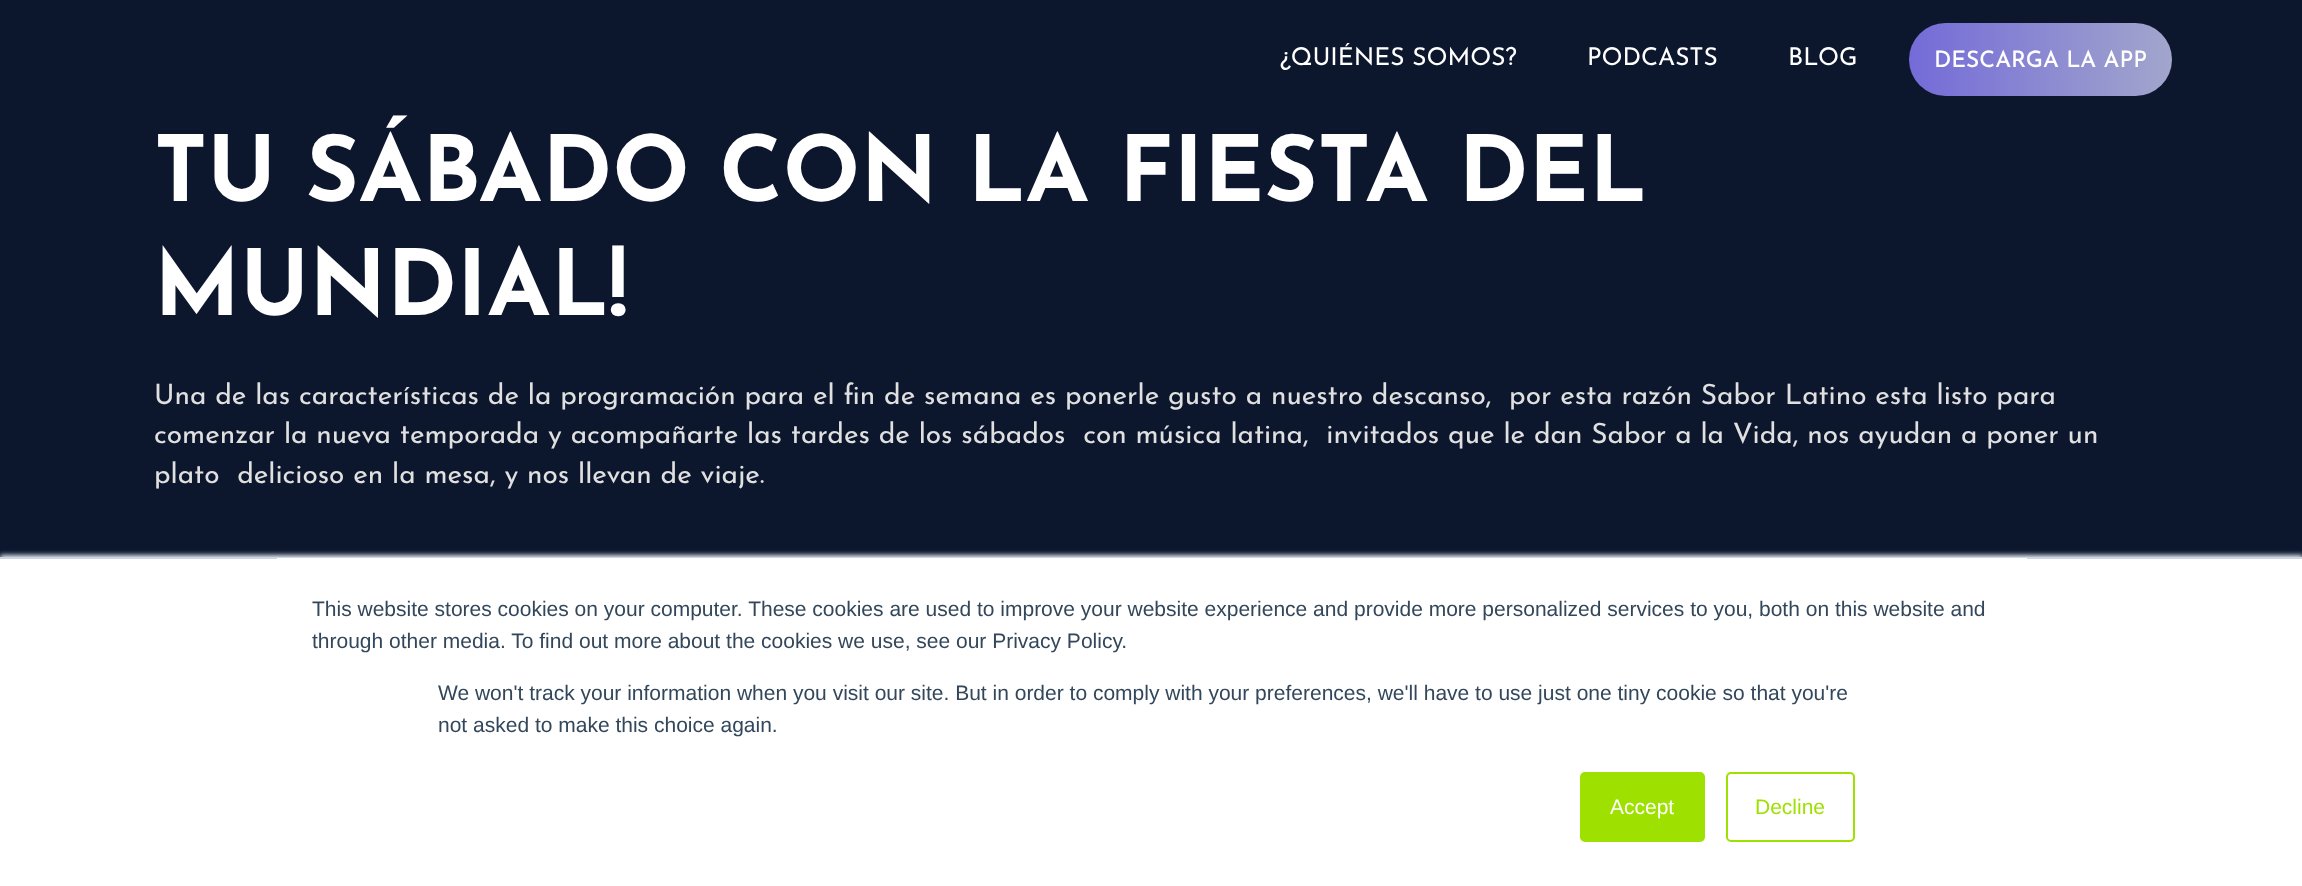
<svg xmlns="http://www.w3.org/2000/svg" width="2302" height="886">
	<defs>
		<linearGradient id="g1" gradientUnits="userSpaceOnUse" x1="1909" y1="60" x2="2172" y2="59"><stop offset="0" stop-color="#746BD8" /><stop offset="1" stop-color="#A2A6CC" /></linearGradient>
	</defs>
	<rect width="100%" height="100%" fill="#0C172D" />
	<g font-family="Josefin Sans" font-size="24.5" fill="#FFFFFF">
		<text x="1280" y="65">¿QUIÉNES SOMOS?</text>
		<text x="1587" y="65">PODCASTS</text>
		<text x="1788" y="65">BLOG</text>
	</g>
	<rect x="1909" y="23" width="263" height="73" rx="36.5" fill="url(#g1)" />
	<text x="1934" y="67" font-family="Josefin Sans" font-size="22.75" font-weight="500" fill="#FFFFFF">DESCARGA LA APP</text>
	<g font-family="Josefin Sans" font-size="91" font-weight="700" fill="#FFFFFF">
		<text x="154" y="201">TU SÁBADO CON LA FIESTA DEL</text>
		<text x="154" y="315">MUNDIAL!</text>
	</g>
	<g font-family="Josefin Sans" font-size="28" fill="#E0E0E0">
		<text x="154" y="404" xml:space="preserve">Una de las características de la programación para el fin de semana es ponerle gusto a nuestro descanso,  por esta razón Sabor Latino esta listo para</text>
		<text x="154" y="443" xml:space="preserve">comenzar la nueva temporada y acompañarte las tardes de los sábados  con música latina,  invitados que le dan Sabor a la Vida, nos ayudan a poner un</text>
		<text x="154" y="483" xml:space="preserve">plato  delicioso en la mesa, y nos llevan de viaje.</text>
	</g>
	<rect x="0" y="555" width="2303" height="331" fill="#EAF0F6" filter="blur(2.5px)" />
	<rect x="0" y="559" width="2302" height="327" fill="#FFFFFF" />
	<rect x="0" y="557" width="2302" height="2" fill="#CBD6E2" />
	<rect x="277" y="558" width="1750" height="1" fill="#FFFFFF" />
	<g font-family="Liberation Sans" font-size="21" fill="#33475B">
		<text x="312" y="616">This website stores cookies on your computer. These cookies are used to improve your website experience and provide more personalized services to you, both on this website and</text>
		<text x="312" y="648">through other media. To find out more about the cookies we use, see our Privacy Policy.</text>
		<text x="438" y="700">We won't track your information when you visit our site. But in order to comply with your preferences, we'll have to use just one tiny cookie so that you're</text>
		<text x="438" y="732">not asked to make this choice again.</text>
	</g>
	<rect x="1581" y="773" width="123" height="68" rx="4" fill="#9EE101" stroke="#9EE101" stroke-width="2" />
	<text x="1610" y="814" font-family="Liberation Sans" font-size="21" fill="#FFFFFF">Accept</text>
	<rect x="1727" y="773" width="127" height="68" rx="4" fill="none" stroke="#9EE101" stroke-width="2" />
	<text x="1755" y="814" font-family="Liberation Sans" font-size="21" fill="#9EE101">Decline</text>
</svg>
